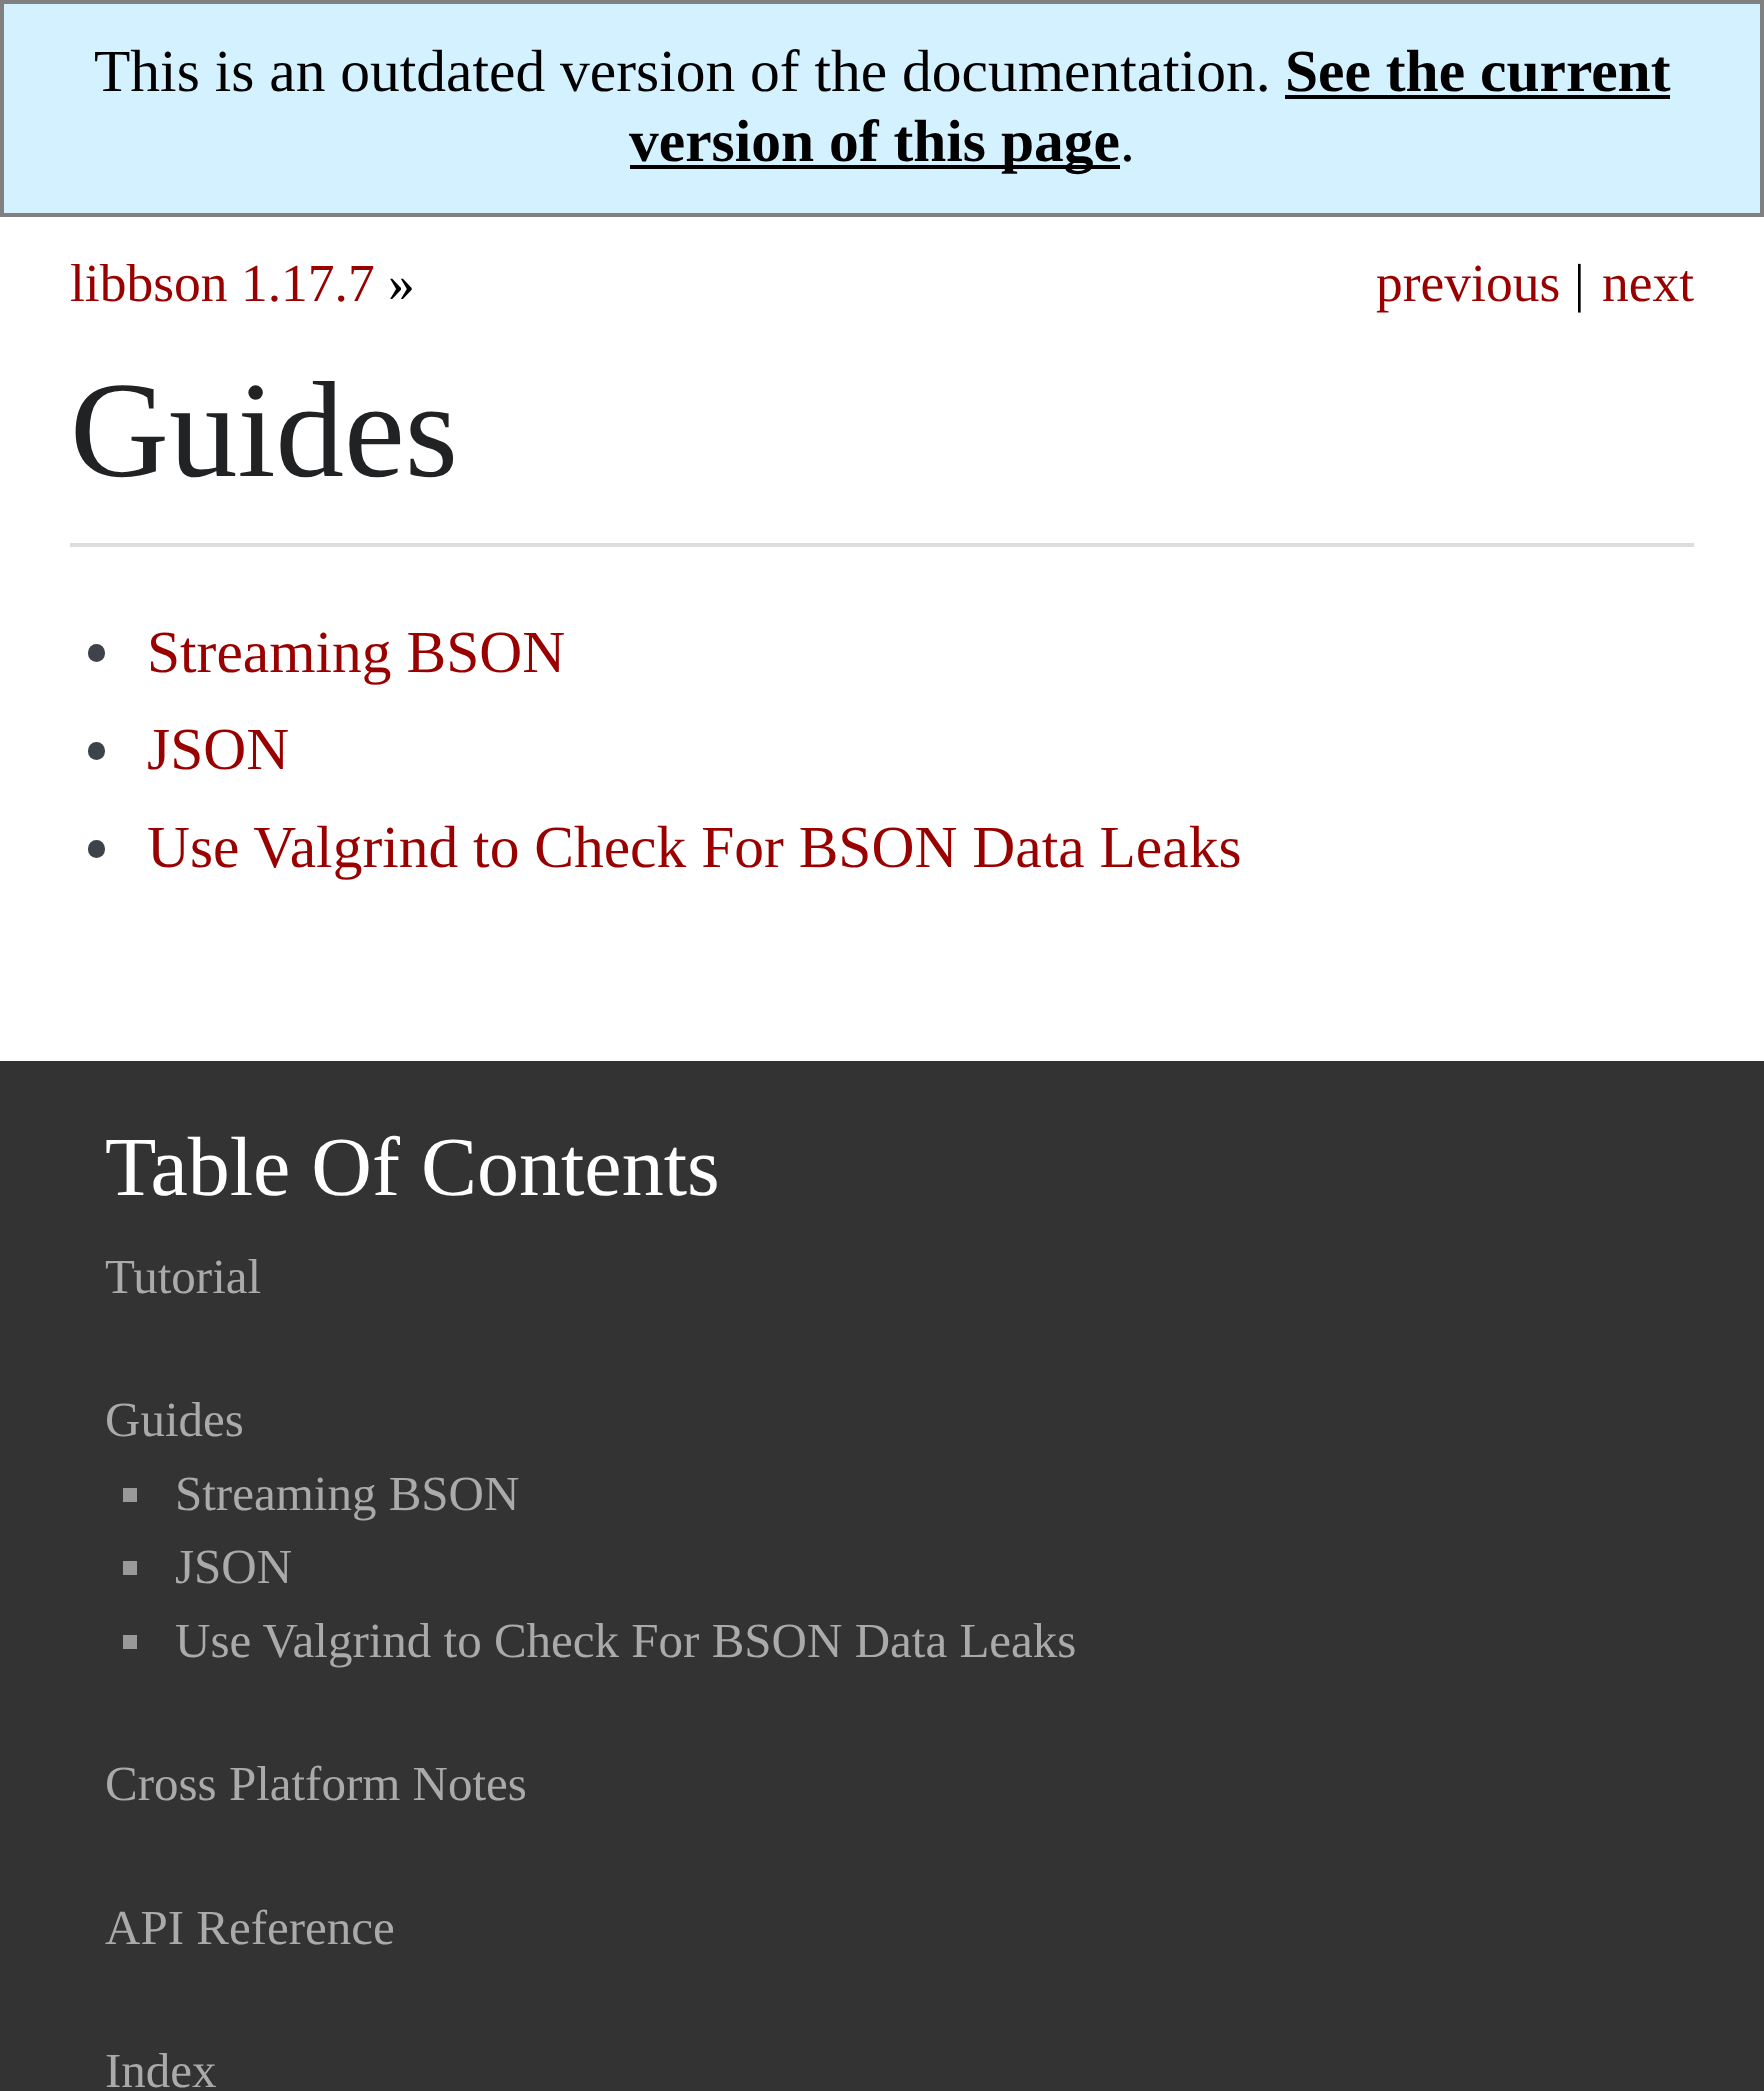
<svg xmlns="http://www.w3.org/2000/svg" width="1764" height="2091">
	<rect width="100%" height="100%" fill="#FFFFFF" />
	<rect x="2" y="2" width="1760" height="213" fill="#D4F1FF" stroke="#808080" stroke-width="4" />
	<text x="94" y="91" font-family="Liberation Serif" font-size="59.5" fill="#000000">This is an outdated version of the documentation.</text>
	<text x="1285" y="91" font-family="Liberation Serif" font-size="59.5" font-weight="700" fill="#000000">See the current</text>
	<rect x="1285" y="95" width="385" height="4" fill="#000000" />
	<rect x="630" y="165" width="490" height="4" fill="#000000" />
	<text x="629" y="161" font-family="Liberation Serif" font-size="59.5" font-weight="700" fill="#000000">version of this page</text>
	<text x="1120" y="161" font-family="Liberation Serif" font-size="59.5" fill="#000000">.</text>
	<text x="70" y="301" font-family="Liberation Serif" font-size="53.5" fill="#990000">libbson 1.17.7</text>
	<text x="388" y="301" font-family="Liberation Serif" font-size="53.5" fill="#000000">»</text>
	<text x="1376" y="301" font-family="Liberation Serif" font-size="53.5" fill="#990000">previous</text>
	<text x="1574" y="301" font-family="Liberation Serif" font-size="53.5" fill="#000000">|</text>
	<text x="1602" y="301" font-family="Liberation Serif" font-size="53.5" fill="#990000">next</text>
	<rect x="70" y="543" width="1624" height="4" fill="#DDDDDD" />
	<text x="70" y="476" font-family="Liberation Serif" font-size="137" fill="#212224">Guides</text>
	<rect x="88" y="644" width="17" height="18" rx="8.5" fill="#3E4349" />
	<text x="147" y="672" font-family="Liberation Serif" font-size="59.5" fill="#990000">Streaming BSON</text>
	<rect x="88" y="742" width="17" height="18" rx="8.5" fill="#3E4349" />
	<text x="147" y="769" font-family="Liberation Serif" font-size="59.5" fill="#990000">JSON</text>
	<rect x="88" y="840" width="17" height="18" rx="8.5" fill="#3E4349" />
	<text x="147" y="867" font-family="Liberation Serif" font-size="59.5" fill="#990000">Use Valgrind to Check For BSON Data Leaks</text>
	<rect x="0" y="1061" width="1764" height="1030" fill="#333333" />
	<text x="105" y="1195" font-family="Liberation Serif" font-size="84" fill="#FFFFFF">Table Of Contents</text>
	<g font-family="Liberation Serif" font-size="49" fill="#AAAAAA">
		<text x="105" y="1293">Tutorial</text>
		<text x="105" y="1436">Guides</text>
	</g>
	<rect x="123" y="1488" width="14" height="14" fill="#999999" />
	<text x="175" y="1510" font-family="Liberation Serif" font-size="49" fill="#AAAAAA">Streaming BSON</text>
	<rect x="123" y="1561" width="14" height="14" fill="#999999" />
	<text x="175" y="1583" font-family="Liberation Serif" font-size="49" fill="#AAAAAA">JSON</text>
	<rect x="123" y="1635" width="14" height="14" fill="#999999" />
	<g font-family="Liberation Serif" font-size="49" fill="#AAAAAA">
		<text x="175" y="1657">Use Valgrind to Check For BSON Data Leaks</text>
		<text x="105" y="1800">Cross Platform Notes</text>
		<text x="105" y="1944">API Reference</text>
		<text x="105" y="2087">Index</text>
	</g>
</svg>
